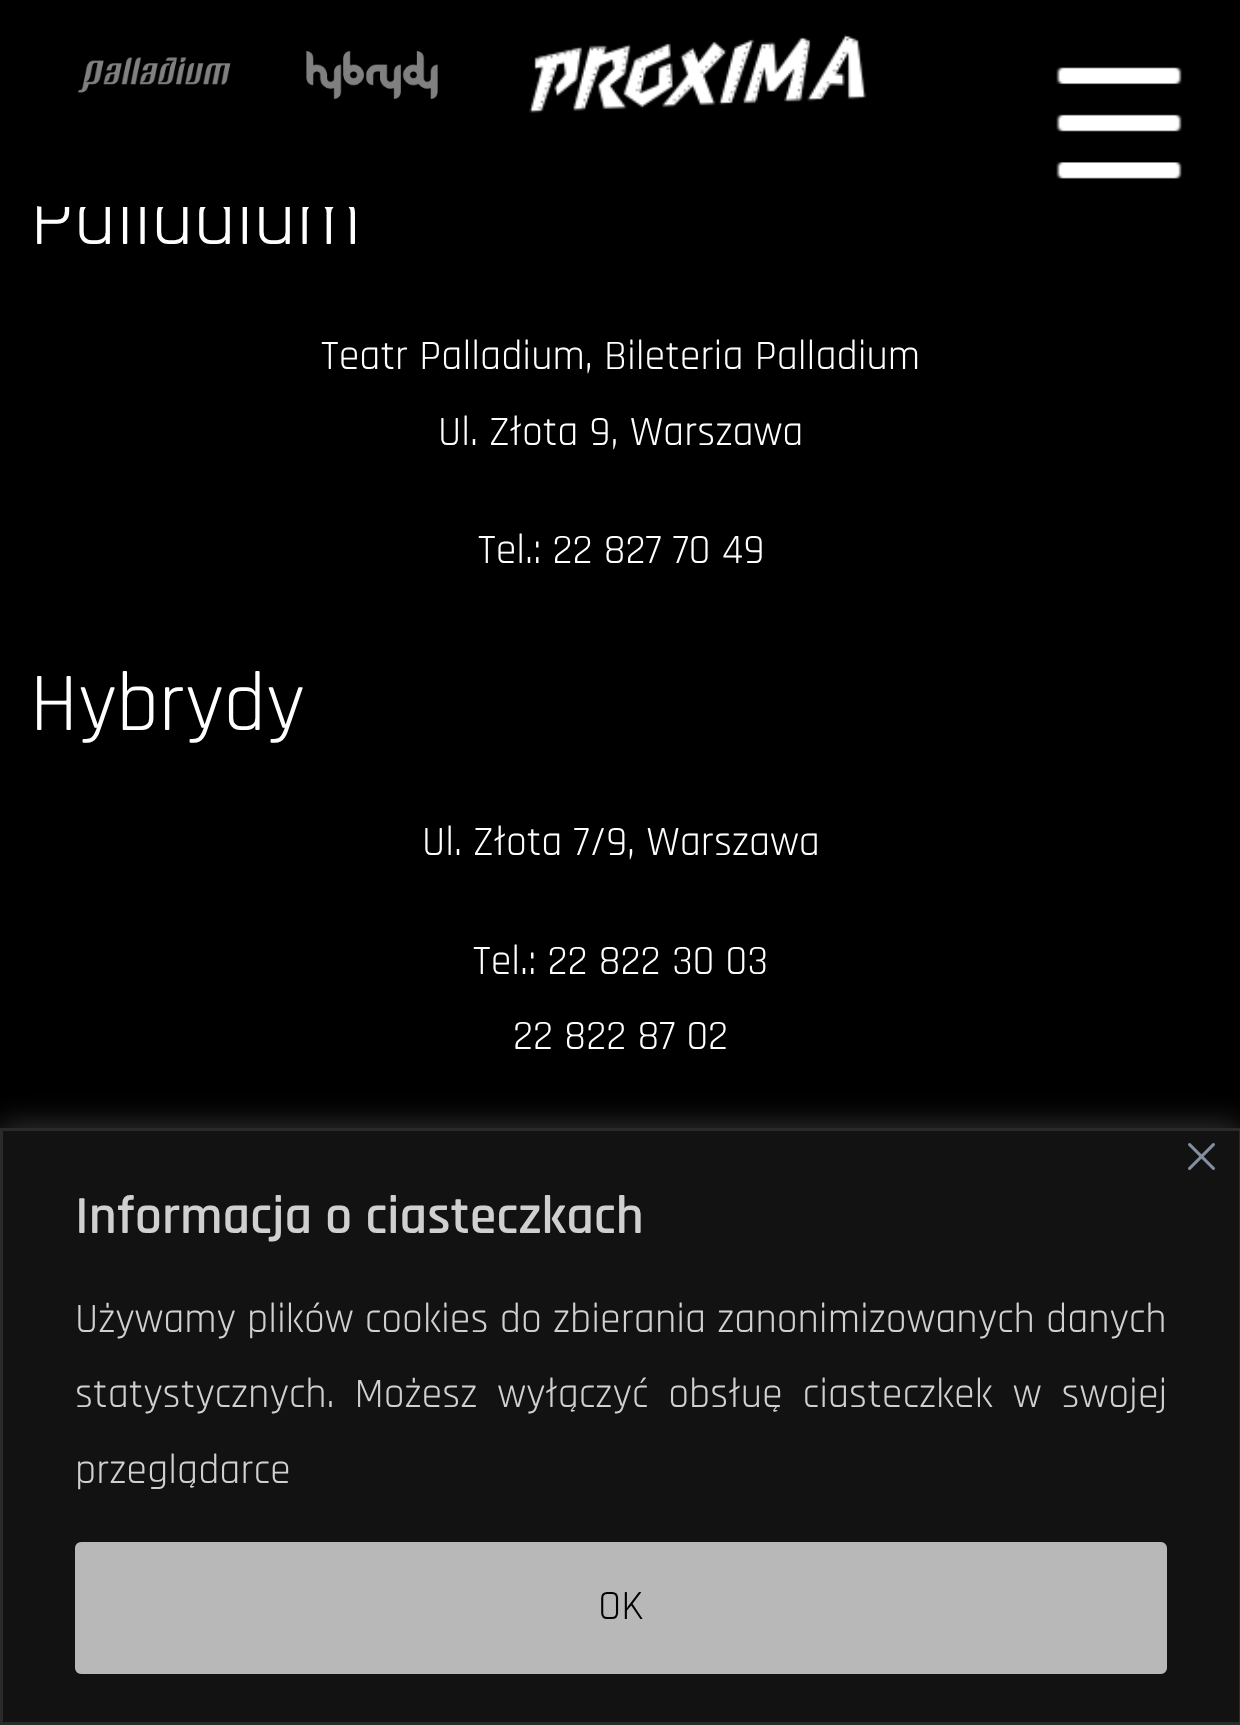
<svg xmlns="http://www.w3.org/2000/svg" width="1240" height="1725">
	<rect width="100%" height="100%" fill="#000000" />
	<text x="30" y="244" font-family="Rajdhani" font-size="84" fill="#FFFFFF">Palladium</text>
	<path d="M15 0H945V177C945 193.5 931.5 207 915 207H45C28.5 207 15 193.5 15 177Z" fill="#000000" />
	<image x="78" y="57" width="153" height="36" href="assets/img1.png" />
	<image x="306" y="51" width="132" height="48" href="assets/img2.png" />
	<image x="529" y="34" width="338" height="79" href="assets/img3.png" />
	<image x="1056" y="67" width="126" height="112" href="assets/img4.png" />
	<g font-family="Rajdhani" font-size="42" fill="#FFFFFF">
		<text x="321" y="369">Teatr Palladium, Bileteria Palladium</text>
		<text x="438" y="445">Ul. Złota 9, Warszawa</text>
		<text x="478" y="563">Tel.: 22 827 70 49</text>
	</g>
	<text x="30" y="730" font-family="Rajdhani" font-size="84" fill="#FFFFFF">Hybrydy</text>
	<g font-family="Rajdhani" font-size="42" fill="#FFFFFF">
		<text x="422" y="855">Ul. Złota 7/9, Warszawa</text>
		<text x="473" y="974">Tel.: 22 822 30 03</text>
		<text x="513" y="1049">22 822 87 02</text>
	</g>
	<rect x="0" y="1125" width="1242" height="597" fill="#ACABAB" fill-opacity="0.3" filter="blur(15px)" />
	<rect x="1.5" y="1129.5" width="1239" height="594" fill="#121212" stroke="#2A2A2A" stroke-width="3" />
	<image x="1188" y="1143" width="27" height="27" href="assets/img5.png" />
	<text x="75" y="1233" font-family="Rajdhani" font-size="54" font-weight="600" fill="#D0D0D0">Informacja o ciasteczkach</text>
	<g font-family="Rajdhani" font-size="42" fill="#D0D0D0">
		<text x="75" y="1332">Używamy plików cookies do zbierania zanonimizowanych danych</text>
		<text x="75" y="1407" word-spacing="8.75">statystycznych. Możesz wyłączyć obsłuę ciasteczkek w swojej</text>
		<text x="75" y="1483">przeglądarce</text>
	</g>
	<rect x="78" y="1545" width="1086" height="126" rx="3" fill="#B8B8B8" stroke="#B8B8B8" stroke-width="6" />
	<text x="598" y="1619" font-family="Rajdhani" font-size="42" fill="#000000">OK</text>
</svg>
